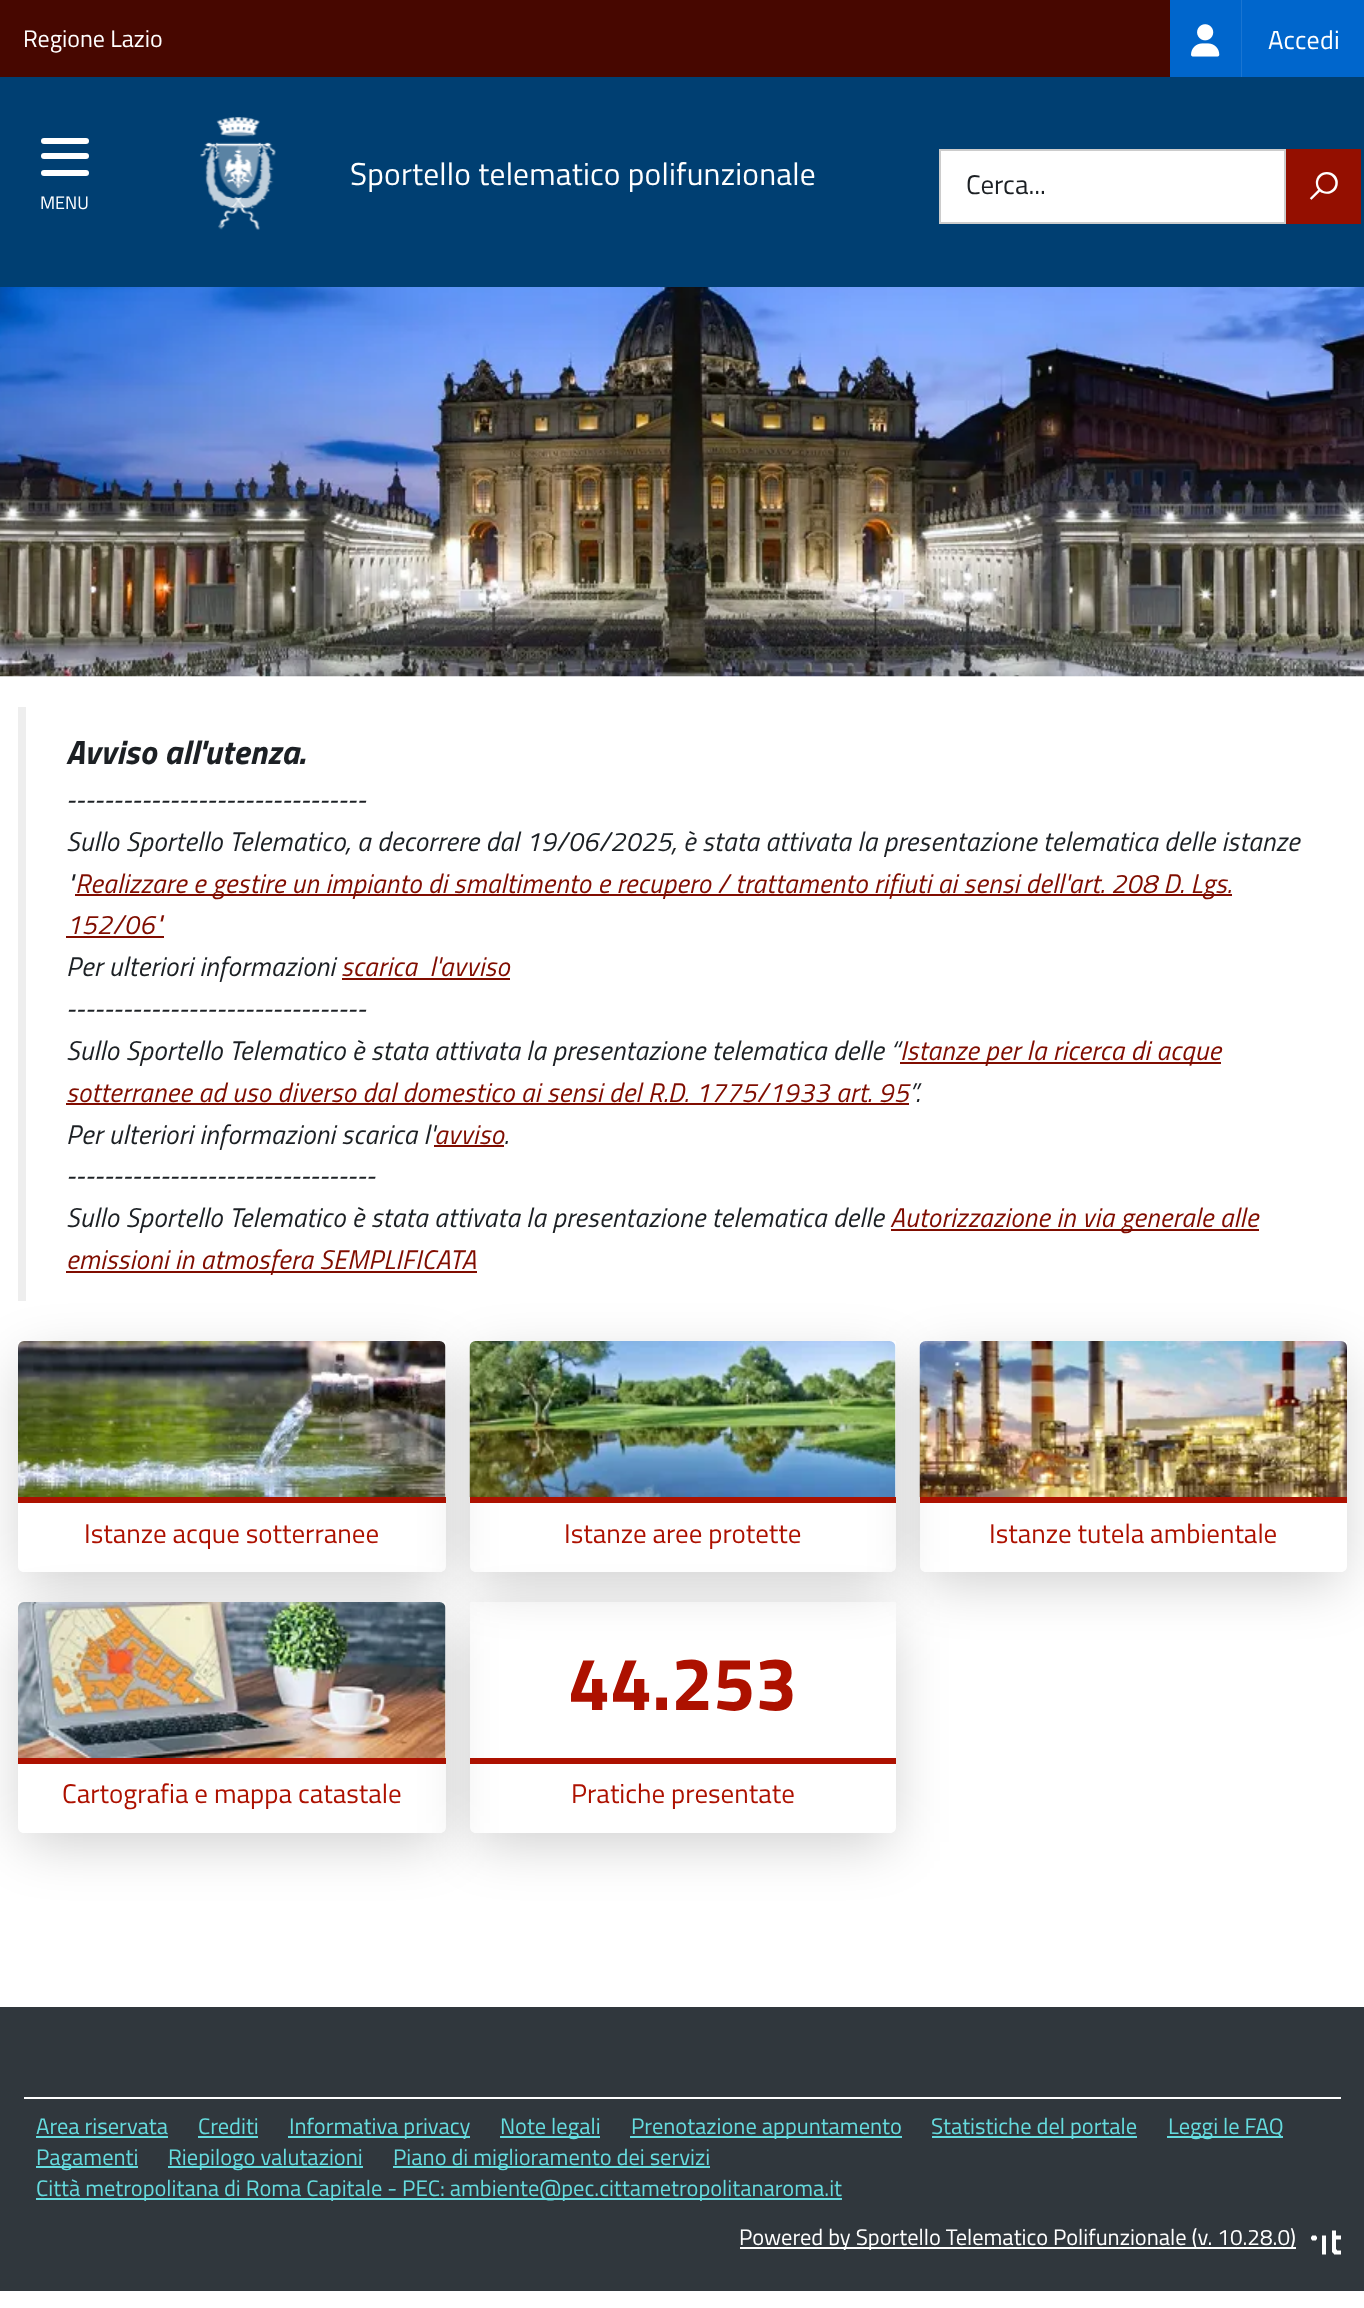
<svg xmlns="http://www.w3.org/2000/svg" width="1364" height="2308">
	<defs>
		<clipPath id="clip1"><path d="M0 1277H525V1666H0ZM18 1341H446V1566C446 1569.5 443.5 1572 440 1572H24C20.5 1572 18 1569.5 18 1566Z" clip-rule="evenodd" /></clipPath>
		<clipPath id="clip2"><path d="M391 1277H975V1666H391ZM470 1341H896V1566C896 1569.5 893.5 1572 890 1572H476C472.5 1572 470 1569.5 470 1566Z" clip-rule="evenodd" /></clipPath>
		<clipPath id="clip3"><path d="M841 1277H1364V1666H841ZM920 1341H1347V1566C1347 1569.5 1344.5 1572 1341 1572H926C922.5 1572 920 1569.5 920 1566Z" clip-rule="evenodd" /></clipPath>
		<clipPath id="clip4"><path d="M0 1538H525V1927H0ZM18 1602H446V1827C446 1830.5 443.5 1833 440 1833H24C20.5 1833 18 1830.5 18 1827Z" clip-rule="evenodd" /></clipPath>
		<clipPath id="clip5"><path d="M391 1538H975V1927H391ZM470 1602H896V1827C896 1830.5 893.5 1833 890 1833H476C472.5 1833 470 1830.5 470 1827Z" clip-rule="evenodd" /></clipPath>
	</defs>
	<rect width="100%" height="100%" fill="#FFFFFF" />
	<rect x="0" y="0" width="1170" height="77" fill="#470700" />
	<text x="23" y="47" font-family="Titillium Web" font-size="24" fill="#FFFFFF">Regione Lazio</text>
	<rect x="1170" y="0" width="71" height="77" fill="#0066CC" />
	<rect x="1241" y="0" width="1" height="77" fill="#1A75D1" />
	<image x="1191" y="24" width="29" height="33" href="assets/img1.png" />
	<rect x="1242" y="0" width="122" height="77" fill="#0066CC" />
	<text x="1268" y="49" font-family="Titillium Web" font-size="26" letter-spacing="0.27" fill="#FFFFFF">Accedi</text>
	<rect x="0" y="77" width="1364" height="210" fill="#003F72" />
	<image x="200" y="117" width="76" height="113" href="assets/img2.png" />
	<text x="350" y="185" font-family="Titillium Web" font-size="31.5" letter-spacing="0.2" fill="#FFFFFF">Sportello telematico polifunzionale</text>
	<rect x="940" y="150" width="345" height="73" fill="#FFFFFF" stroke="#CCCCCC" stroke-width="2" />
	<rect x="1286" y="149" width="75" height="75" fill="#940F00" />
	<text x="1310" y="198" font-family="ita" font-size="27" font-weight="700" fill="#FFFFFF">🔍</text>
	<text x="966" y="194" font-family="Titillium Web" font-size="27" fill="#1C2024">Cerca...</text>
	<rect x="41" y="153" width="48" height="6" rx="3" fill="#FFFFFF" />
	<rect x="41" y="138" width="48" height="6" rx="3" fill="#FFFFFF" />
	<rect x="41" y="170" width="48" height="6" rx="3" fill="#FFFFFF" />
	<text x="40" y="209" font-family="Titillium Web" font-size="18" fill="#FFFFFF">MENU</text>
	<image x="0" y="287" width="1364" height="390" href="assets/img3.png" />
	<rect x="18" y="707" width="8" height="594" fill="#EEEEEE" />
	<text x="66" y="764" font-family="Titillium Web" font-size="33.75" font-weight="700" font-style="italic" letter-spacing="0.27" fill="#1C2024">Avviso all'utenza.</text>
	<g font-family="Titillium Web" font-size="27" font-style="italic" letter-spacing="0.27" fill="#1C2024">
		<text x="66" y="809">--------------------------------</text>
		<text x="66" y="851">Sullo Sportello Telematico, a decorrere dal 19/06/2025, è stata attivata la presentazione telematica delle istanze</text>
		<text x="66" y="893">"</text>
	</g>
	<rect x="75" y="894" width="1157" height="2" fill="#800D00" />
	<g font-family="Titillium Web" font-size="27" font-style="italic" letter-spacing="0.27" fill="#800D00">
		<text x="75" y="893">Realizzare e gestire un impianto di smaltimento e recupero / trattamento rifiuti ai sensi dell'art. 208 D. Lgs.</text>
		<text x="66" y="934">152/06"</text>
	</g>
	<rect x="66" y="936" width="98" height="2" fill="#800D00" />
	<text x="66" y="976" font-family="Titillium Web" font-size="27" font-style="italic" letter-spacing="0.27" fill="#1C2024">Per ulteriori informazioni</text>
	<text x="341" y="976" font-family="Titillium Web" font-size="27" font-style="italic" letter-spacing="0.27" fill="#800D00" xml:space="preserve">scarica  l'avviso</text>
	<rect x="342" y="978" width="168" height="2" fill="#800D00" />
	<g font-family="Titillium Web" font-size="27" font-style="italic" letter-spacing="0.27" fill="#1C2024">
		<text x="66" y="1018">--------------------------------</text>
		<text x="66" y="1060">Sullo Sportello Telematico è stata attivata la presentazione telematica delle “</text>
	</g>
	<rect x="900" y="1062" width="321" height="2" fill="#800D00" />
	<g font-family="Titillium Web" font-size="27" font-style="italic" letter-spacing="0.27" fill="#800D00">
		<text x="900" y="1060">Istanze per la ricerca di acque</text>
		<text x="66" y="1102">sotterranee ad uso diverso dal domestico ai sensi del R.D. 1775/1933 art. 95</text>
	</g>
	<rect x="66" y="1103" width="843" height="2" fill="#800D00" />
	<g font-family="Titillium Web" font-size="27" font-style="italic" letter-spacing="0.27" fill="#1C2024">
		<text x="909" y="1102">”.</text>
		<text x="66" y="1144">Per ulteriori informazioni scarica l'</text>
	</g>
	<text x="434" y="1144" font-family="Titillium Web" font-size="27" font-style="italic" letter-spacing="0.27" fill="#800D00">avviso</text>
	<rect x="434" y="1145" width="70" height="2" fill="#800D00" />
	<g font-family="Titillium Web" font-size="27" font-style="italic" letter-spacing="0.27" fill="#1C2024">
		<text x="504" y="1144">.</text>
		<text x="66" y="1185">---------------------------------</text>
		<text x="66" y="1227">Sullo Sportello Telematico è stata attivata la presentazione telematica delle</text>
	</g>
	<rect x="891" y="1229" width="368" height="2" fill="#800D00" />
	<text x="890" y="1227" font-family="Titillium Web" font-size="27" font-style="italic" letter-spacing="0.27" fill="#800D00">Autorizzazione in via generale alle</text>
	<rect x="66" y="1271" width="411" height="2" fill="#800D00" />
	<text x="66" y="1269" font-family="Titillium Web" font-size="27" font-style="italic" letter-spacing="0.27" fill="#800D00">emissioni in atmosfera SEMPLIFICATA</text>
	<g clip-path="url(#clip1)">
		<rect x="24" y="1362" width="416" height="219" fill="#000000" fill-opacity="0.2" filter="blur(28px)" />
	</g>
	<image x="18" y="1341" width="428" height="156" href="assets/img4.png" />
	<rect x="18" y="1497" width="428" height="6" fill="#AD1100" />
	<text x="84" y="1543" font-family="Titillium Web" font-size="27" fill="#AD1100">Istanze acque sotterranee</text>
	<g clip-path="url(#clip2)">
		<rect x="476" y="1362" width="414" height="219" fill="#000000" fill-opacity="0.2" filter="blur(28px)" />
	</g>
	<image x="469" y="1341" width="427" height="156" href="assets/img5.png" />
	<rect x="470" y="1497" width="426" height="6" fill="#AD1100" />
	<text x="564" y="1543" font-family="Titillium Web" font-size="27" fill="#AD1100">Istanze aree protette</text>
	<g clip-path="url(#clip3)">
		<rect x="926" y="1362" width="415" height="219" fill="#000000" fill-opacity="0.2" filter="blur(28px)" />
	</g>
	<image x="919" y="1341" width="428" height="156" href="assets/img6.png" />
	<rect x="920" y="1497" width="427" height="6" fill="#AD1100" />
	<text x="989" y="1543" font-family="Titillium Web" font-size="27" fill="#AD1100">Istanze tutela ambientale</text>
	<g clip-path="url(#clip4)">
		<rect x="24" y="1623" width="416" height="219" fill="#000000" fill-opacity="0.2" filter="blur(28px)" />
	</g>
	<image x="18" y="1602" width="428" height="156" href="assets/img7.png" />
	<rect x="18" y="1758" width="428" height="6" fill="#AD1100" />
	<text x="62" y="1803" font-family="Titillium Web" font-size="27" fill="#AD1100">Cartografia e mappa catastale</text>
	<g clip-path="url(#clip5)">
		<rect x="476" y="1623" width="414" height="219" fill="#000000" fill-opacity="0.2" filter="blur(28px)" />
	</g>
	<rect x="470" y="1758" width="426" height="6" fill="#AD1100" />
	<text x="568" y="1710" font-family="Titillium Web" font-size="75" font-weight="700" fill="#AD1100">44.253</text>
	<text x="571" y="1803" font-family="Titillium Web" font-size="27" fill="#AD1100">Pratiche presentate</text>
	<rect x="0" y="2007" width="1364" height="284" fill="#30373D" />
	<rect x="24" y="2097" width="1317" height="2" fill="#FFFFFF" />
	<text x="36" y="2134" font-family="Titillium Web" font-size="22.5" fill="#65DCDF">Area riservata</text>
	<rect x="36" y="2136" width="132" height="2" fill="#65DCDF" />
	<text x="198" y="2134" font-family="Titillium Web" font-size="22.5" fill="#65DCDF">Crediti</text>
	<rect x="198" y="2136" width="60" height="2" fill="#65DCDF" />
	<rect x="288" y="2136" width="182" height="2" fill="#65DCDF" />
	<text x="289" y="2134" font-family="Titillium Web" font-size="22.5" fill="#65DCDF">Informativa privacy</text>
	<rect x="500" y="2136" width="100" height="2" fill="#65DCDF" />
	<text x="500" y="2134" font-family="Titillium Web" font-size="22.5" fill="#65DCDF">Note legali</text>
	<rect x="630" y="2136" width="272" height="2" fill="#65DCDF" />
	<text x="631" y="2134" font-family="Titillium Web" font-size="22.5" fill="#65DCDF">Prenotazione appuntamento</text>
	<rect x="932" y="2136" width="205" height="2" fill="#65DCDF" />
	<text x="931" y="2134" font-family="Titillium Web" font-size="22.5" fill="#65DCDF">Statistiche del portale</text>
	<rect x="1167" y="2136" width="116" height="2" fill="#65DCDF" />
	<text x="1168" y="2134" font-family="Titillium Web" font-size="22.5" fill="#65DCDF">Leggi le FAQ</text>
	<rect x="36" y="2166" width="102" height="2" fill="#65DCDF" />
	<text x="36" y="2165" font-family="Titillium Web" font-size="22.5" fill="#65DCDF">Pagamenti</text>
	<rect x="168" y="2166" width="195" height="2" fill="#65DCDF" />
	<text x="168" y="2165" font-family="Titillium Web" font-size="22.5" fill="#65DCDF">Riepilogo valutazioni</text>
	<rect x="393" y="2166" width="317" height="2" fill="#65DCDF" />
	<text x="393" y="2165" font-family="Titillium Web" font-size="22.5" fill="#65DCDF">Piano di miglioramento dei servizi</text>
	<rect x="36" y="2198" width="806" height="2" fill="#65DCDF" />
	<text x="36" y="2196" font-family="Titillium Web" font-size="22.5" fill="#65DCDF">Città metropolitana di Roma Capitale - PEC: ambiente@pec.cittametropolitanaroma.it</text>
	<rect x="740" y="2247" width="556" height="2" fill="#FFFFFF" />
	<text x="739" y="2245" font-family="Titillium Web" font-size="22.5" fill="#FFFFFF">Powered by Sportello Telematico Polifunzionale (v. 10.28.0)</text>
	<image x="1311" y="2230" width="30" height="25" href="assets/img8.png" />
</svg>
